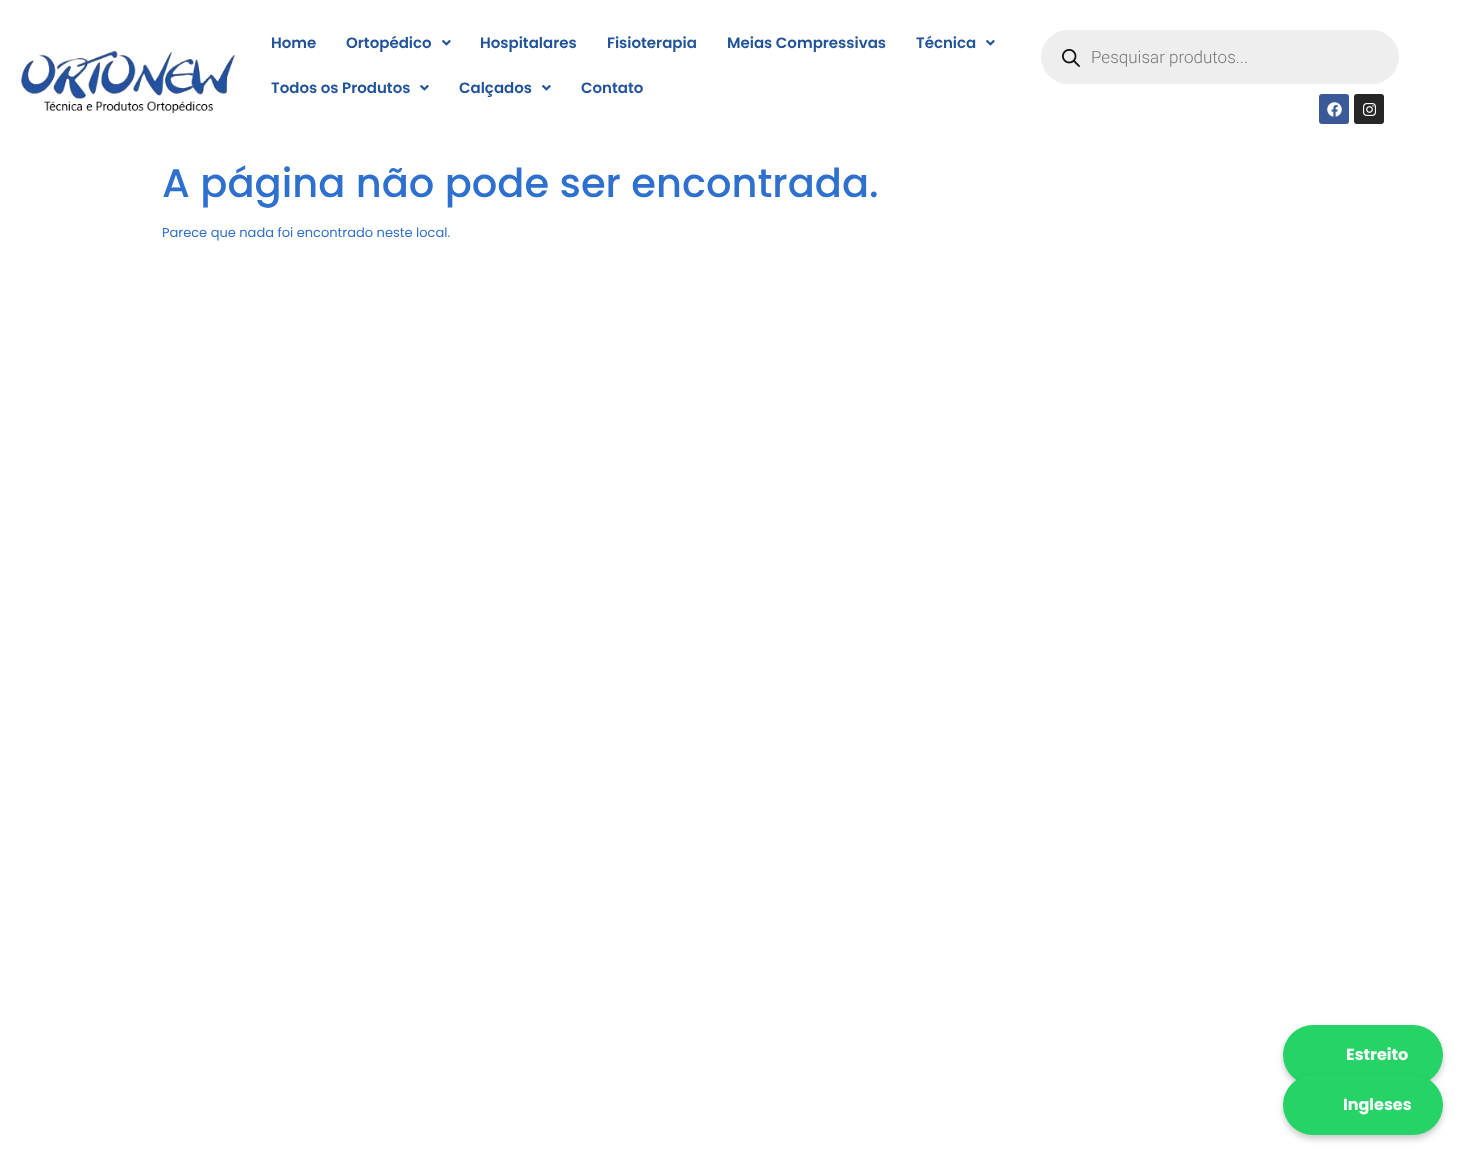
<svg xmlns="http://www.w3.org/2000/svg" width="1463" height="1155">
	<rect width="100%" height="100%" fill="#FFFFFF" />
	<image x="20" y="50" width="216" height="63" href="assets/img1.png" />
	<g font-family="Poppins" font-size="15" font-weight="600" fill="#21539A">
		<text x="271" y="48">Home</text>
		<text x="346" y="48">Ortopédico</text>
	</g>
	<image x="442" y="40" width="9" height="6" href="assets/img2.png" />
	<g font-family="Poppins" font-size="15" font-weight="600" fill="#21539A">
		<text x="480" y="48">Hospitalares</text>
		<text x="607" y="48">Fisioterapia</text>
		<text x="727" y="48">Meias Compressivas</text>
		<text x="916" y="48">Técnica</text>
	</g>
	<image x="986" y="40" width="9" height="6" href="assets/img2.png" />
	<text x="271" y="93" font-family="Poppins" font-size="15" font-weight="600" fill="#21539A">Todos os Produtos</text>
	<image x="420" y="85" width="9" height="6" href="assets/img2.png" />
	<text x="459" y="93" font-family="Poppins" font-size="15" font-weight="600" fill="#21539A">Calçados</text>
	<image x="542" y="85" width="9" height="6" href="assets/img2.png" />
	<text x="581" y="93" font-family="Poppins" font-size="15" font-weight="600" fill="#21539A">Contato</text>
	<rect x="1041" y="30" width="358" height="54" rx="27" fill="#EEEEEE" />
	<image x="1062" y="49" width="18" height="18" href="assets/img3.png" />
	<text x="1091" y="63" font-family="Roboto" font-size="17" font-weight="300" fill="#777777">Pesquisar produtos...</text>
	<rect x="1319" y="94" width="30" height="30" rx="3" fill="#3B5998" />
	<image x="1327" y="102" width="15" height="15" href="assets/img4.png" />
	<rect x="1354" y="94" width="30" height="30" rx="3" fill="#262626" />
	<image x="1363" y="103" width="14" height="13" href="assets/img5.png" />
	<text x="162" y="197" font-family="Poppins" font-size="40" font-weight="500" fill="#2E70CE">A página não pode ser encontrada.</text>
	<text x="162" y="237" font-family="Poppins" font-size="13" fill="#2E70CE">Parece que nada foi encontrado neste local.</text>
	<rect x="1283" y="1029" width="160" height="60" rx="30" fill="#000000" fill-opacity="0.2" filter="blur(3px)" />
	<rect x="1283" y="1025" width="160" height="60" rx="30" fill="#25D366" />
	<text x="1346" y="1060" font-family="Poppins" font-size="16" font-weight="700" fill="#FFFFFF">Estreito</text>
	<rect x="1283" y="1079" width="160" height="60" rx="30" fill="#000000" fill-opacity="0.2" filter="blur(3px)" />
	<rect x="1283" y="1075" width="160" height="60" rx="30" fill="#25D366" />
	<text x="1343" y="1110" font-family="Poppins" font-size="16" font-weight="700" fill="#FFFFFF">Ingleses</text>
</svg>
